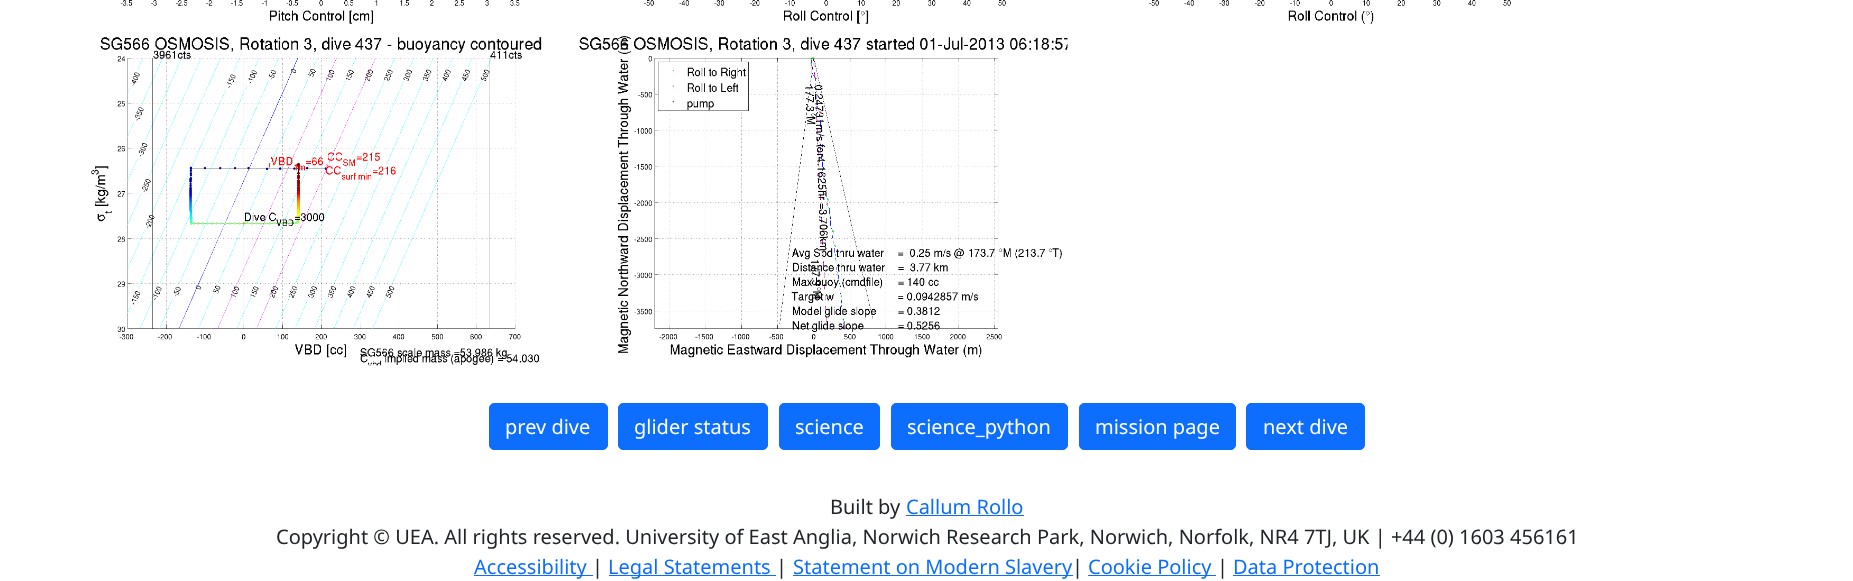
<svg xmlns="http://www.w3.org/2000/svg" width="1853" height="581">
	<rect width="100%" height="100%" fill="#FFFFFF" />
	<image x="120" y="0" width="400" height="24" href="assets/img1.png" />
	<image x="644" y="0" width="362" height="24" href="assets/img2.png" />
	<image x="1149" y="0" width="362" height="24" href="assets/img3.png" />
	<image x="91" y="37" width="451" height="329" href="assets/img4.png" />
	<image x="579" y="36" width="489" height="322" href="assets/img5.png" />
	<rect x="489.5" y="403.5" width="118" height="46" rx="4.5" fill="#0D6EFD" stroke="#0D6EFD" />
	<text x="505" y="434" font-family="Noto Sans" font-size="20" fill="#FFFFFF">prev dive</text>
	<rect x="618.5" y="403.5" width="149" height="46" rx="4.5" fill="#0D6EFD" stroke="#0D6EFD" />
	<text x="634" y="434" font-family="Noto Sans" font-size="20" fill="#FFFFFF">glider status</text>
	<rect x="779.5" y="403.5" width="100" height="46" rx="4.5" fill="#0D6EFD" stroke="#0D6EFD" />
	<text x="795" y="434" font-family="Noto Sans" font-size="20" fill="#FFFFFF">science</text>
	<rect x="891.5" y="403.5" width="176" height="46" rx="4.5" fill="#0D6EFD" stroke="#0D6EFD" />
	<text x="907" y="434" font-family="Noto Sans" font-size="20" fill="#FFFFFF">science_python</text>
	<rect x="1079.5" y="403.5" width="156" height="46" rx="4.5" fill="#0D6EFD" stroke="#0D6EFD" />
	<text x="1095" y="434" font-family="Noto Sans" font-size="20" fill="#FFFFFF">mission page</text>
	<rect x="1246.5" y="403.5" width="118" height="46" rx="4.5" fill="#0D6EFD" stroke="#0D6EFD" />
	<text x="1263" y="434" font-family="Noto Sans" font-size="20" fill="#FFFFFF">next dive</text>
	<text x="830" y="514" font-family="Noto Sans" font-size="20" fill="#212529">Built by</text>
	<text x="906" y="514" font-family="Noto Sans" font-size="20" fill="#0D6EFD">Callum Rollo</text>
	<rect x="906" y="515" width="118" height="1" fill="#0D6EFD" />
	<text x="276" y="544" font-family="Noto Sans" font-size="20" fill="#212529">Copyright © UEA. All rights reserved. University of East Anglia, Norwich Research Park, Norwich, Norfolk, NR4 7TJ, UK | +44 (0) 1603 456161</text>
	<rect x="474" y="575" width="119" height="1" fill="#0D6EFD" />
	<text x="474" y="574" font-family="Noto Sans" font-size="20" fill="#0D6EFD">Accessibility</text>
	<text x="592" y="574" font-family="Noto Sans" font-size="20" fill="#212529">|</text>
	<rect x="609" y="575" width="167" height="1" fill="#0D6EFD" />
	<text x="608" y="574" font-family="Noto Sans" font-size="20" fill="#0D6EFD">Legal Statements</text>
	<text x="776" y="574" font-family="Noto Sans" font-size="20" fill="#212529">|</text>
	<rect x="793" y="575" width="280" height="1" fill="#0D6EFD" />
	<text x="793" y="574" font-family="Noto Sans" font-size="20" fill="#0D6EFD">Statement on Modern Slavery</text>
	<text x="1072" y="574" font-family="Noto Sans" font-size="20" fill="#212529">|</text>
	<rect x="1088" y="575" width="128" height="1" fill="#0D6EFD" />
	<text x="1088" y="574" font-family="Noto Sans" font-size="20" fill="#0D6EFD">Cookie Policy</text>
	<text x="1217" y="574" font-family="Noto Sans" font-size="20" fill="#212529">|</text>
	<text x="1233" y="574" font-family="Noto Sans" font-size="20" fill="#0D6EFD">Data Protection</text>
	<rect x="1233" y="575" width="147" height="1" fill="#0D6EFD" />
</svg>
